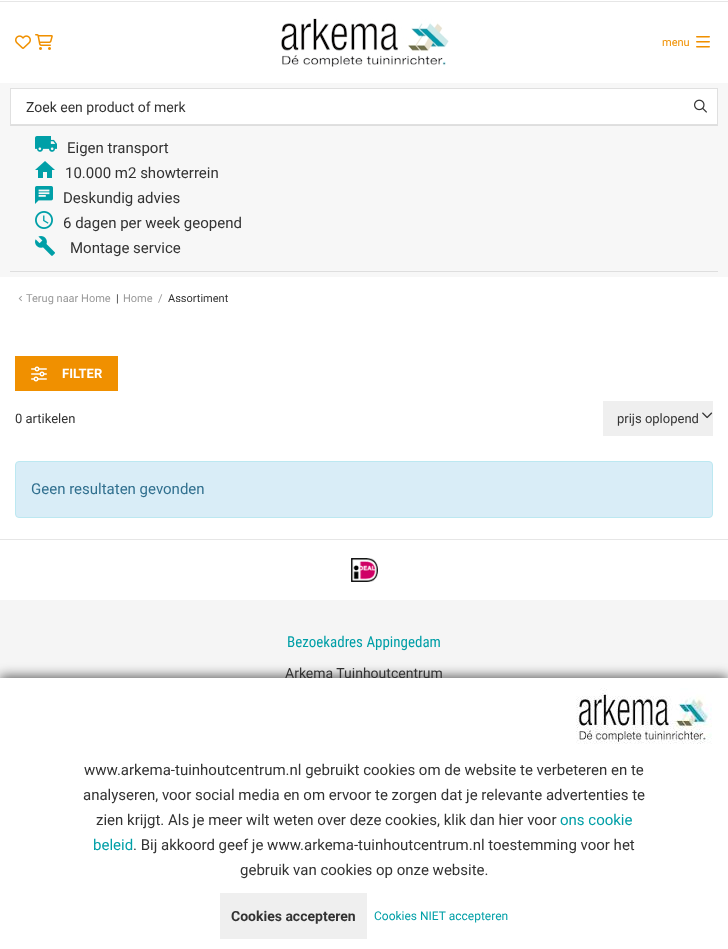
<svg xmlns="http://www.w3.org/2000/svg" width="728" height="949">
	<rect width="100%" height="100%" fill="#FFFFFF" />
	<rect x="0" y="1" width="728" height="1" fill="#E6E6E6" />
	<image x="15" y="35" width="16" height="14" href="assets/img1.png" />
	<image x="35" y="34" width="18" height="16" href="assets/img2.png" />
	<image x="281" y="18" width="168" height="49" href="assets/img3.png" />
	<text x="662" y="46" font-family="Roboto" font-size="11" fill="#F09000">menu</text>
	<image x="696" y="36" width="14" height="12" href="assets/img4.png" />
	<rect x="0" y="83" width="728" height="194" fill="#F7F7F7" />
	<rect x="10.5" y="88.5" width="707" height="36" fill="#FFFFFF" stroke="#E0E0E0" />
	<text x="26" y="112" font-family="Roboto" font-size="14" fill="#333333">Zoek een product of merk</text>
	<image x="694" y="99" width="13" height="14" href="assets/img5.png" />
	<rect x="10" y="125" width="708" height="1" fill="#DEDEDE" />
	<rect x="10" y="271" width="708" height="1" fill="#DEDEDE" />
	<image x="35" y="136" width="22" height="16" href="assets/img6.png" />
	<text x="67" y="153" font-family="Roboto" font-size="15" fill="#333333">Eigen transport</text>
	<image x="35" y="161" width="20" height="17" href="assets/img7.png" />
	<text x="65" y="178" font-family="Roboto" font-size="15" fill="#333333">10.000 m2 showterrein</text>
	<image x="35" y="186" width="18" height="18" href="assets/img8.png" />
	<text x="63" y="203" font-family="Roboto" font-size="15" fill="#333333">Deskundig advies</text>
	<image x="35" y="211" width="18" height="18" href="assets/img9.png" />
	<text x="63" y="228" font-family="Roboto" font-size="15" fill="#333333">6 dagen per week geopend</text>
	<image x="35" y="236" width="20" height="20" href="assets/img10.png" />
	<text x="70" y="253" font-family="Roboto" font-size="15" fill="#333333">Montage service</text>
	<image x="18" y="295" width="4" height="7" href="assets/img11.png" />
	<text x="26" y="302" font-family="Roboto" font-size="11" fill="#999999">Terug naar Home</text>
	<text x="116" y="302" font-family="Roboto" font-size="11" fill="#333333">|</text>
	<g font-family="Roboto" font-size="11" fill="#999999">
		<text x="123" y="302">Home</text>
		<text x="158" y="302">/</text>
	</g>
	<text x="168" y="302" font-family="Roboto" font-size="11" fill="#333333">Assortiment</text>
	<rect x="15" y="356" width="103" height="35" fill="#F09000" />
	<image x="31" y="366" width="16" height="16" href="assets/img12.png" />
	<text x="62" y="378" font-family="Roboto" font-size="13" font-weight="700" fill="#FFFFFF">FILTER</text>
	<text x="15" y="423" font-family="Roboto" font-size="13" fill="#333333">0 artikelen</text>
	<rect x="603" y="401" width="110" height="35" fill="#EFEFEF" />
	<text x="617" y="423" font-family="Roboto" font-size="13" fill="#333333">prijs oplopend</text>
	<image x="702" y="412" width="11" height="7" href="assets/img13.png" />
	<rect x="15.5" y="461.5" width="697" height="56" rx="3.5" fill="#D9EDF7" stroke="#BCE8F1" />
	<text x="31" y="494" font-family="Roboto" font-size="15" fill="#31708F">Geen resultaten gevonden</text>
	<rect x="0" y="539" width="728" height="1" fill="#E6E6E6" />
	<image x="351" y="558" width="27" height="24" href="assets/img14.png" />
	<rect x="0" y="600" width="728" height="78" fill="#F5F5F5" />
	<text x="287" y="647" font-family="Roboto Condensed" font-size="15" fill="#009FA7">Bezoekadres Appingedam</text>
	<text x="285" y="678" font-family="Roboto" font-size="14" fill="#333333">Arkema Tuinhoutcentrum</text>
	<rect x="0" y="676" width="728" height="271" fill="#323232" fill-opacity="0.75" filter="blur(6px)" />
	<rect x="0" y="678" width="728" height="271" fill="#FFFFFF" />
	<image x="576" y="688" width="136" height="56" href="assets/img15.png" />
	<g font-family="Roboto" font-size="15" fill="#333333">
		<text x="84" y="775">www.arkema-tuinhoutcentrum.nl gebruikt cookies om de website te verbeteren en te</text>
		<text x="83" y="800">analyseren, voor social media en om ervoor te zorgen dat je relevante advertenties te</text>
		<text x="96" y="825">zien krijgt. Als je meer wilt weten over deze cookies, klik dan hier voor</text>
	</g>
	<g font-family="Roboto" font-size="15" fill="#009FA7">
		<text x="560" y="825">ons cookie</text>
		<text x="93" y="850">beleid</text>
	</g>
	<g font-family="Roboto" font-size="15" fill="#333333">
		<text x="133" y="850">. Bij akkoord geef je www.arkema-tuinhoutcentrum.nl toestemming voor het</text>
		<text x="240" y="875">gebruik van cookies op onze website.</text>
	</g>
	<rect x="220" y="893" width="147" height="46" fill="#EFEFEF" />
	<text x="231" y="921" font-family="Roboto" font-size="14" font-weight="700" fill="#333333">Cookies accepteren</text>
	<text x="374" y="920" font-family="Roboto" font-size="12" fill="#009FA7">Cookies NIET accepteren</text>
</svg>
